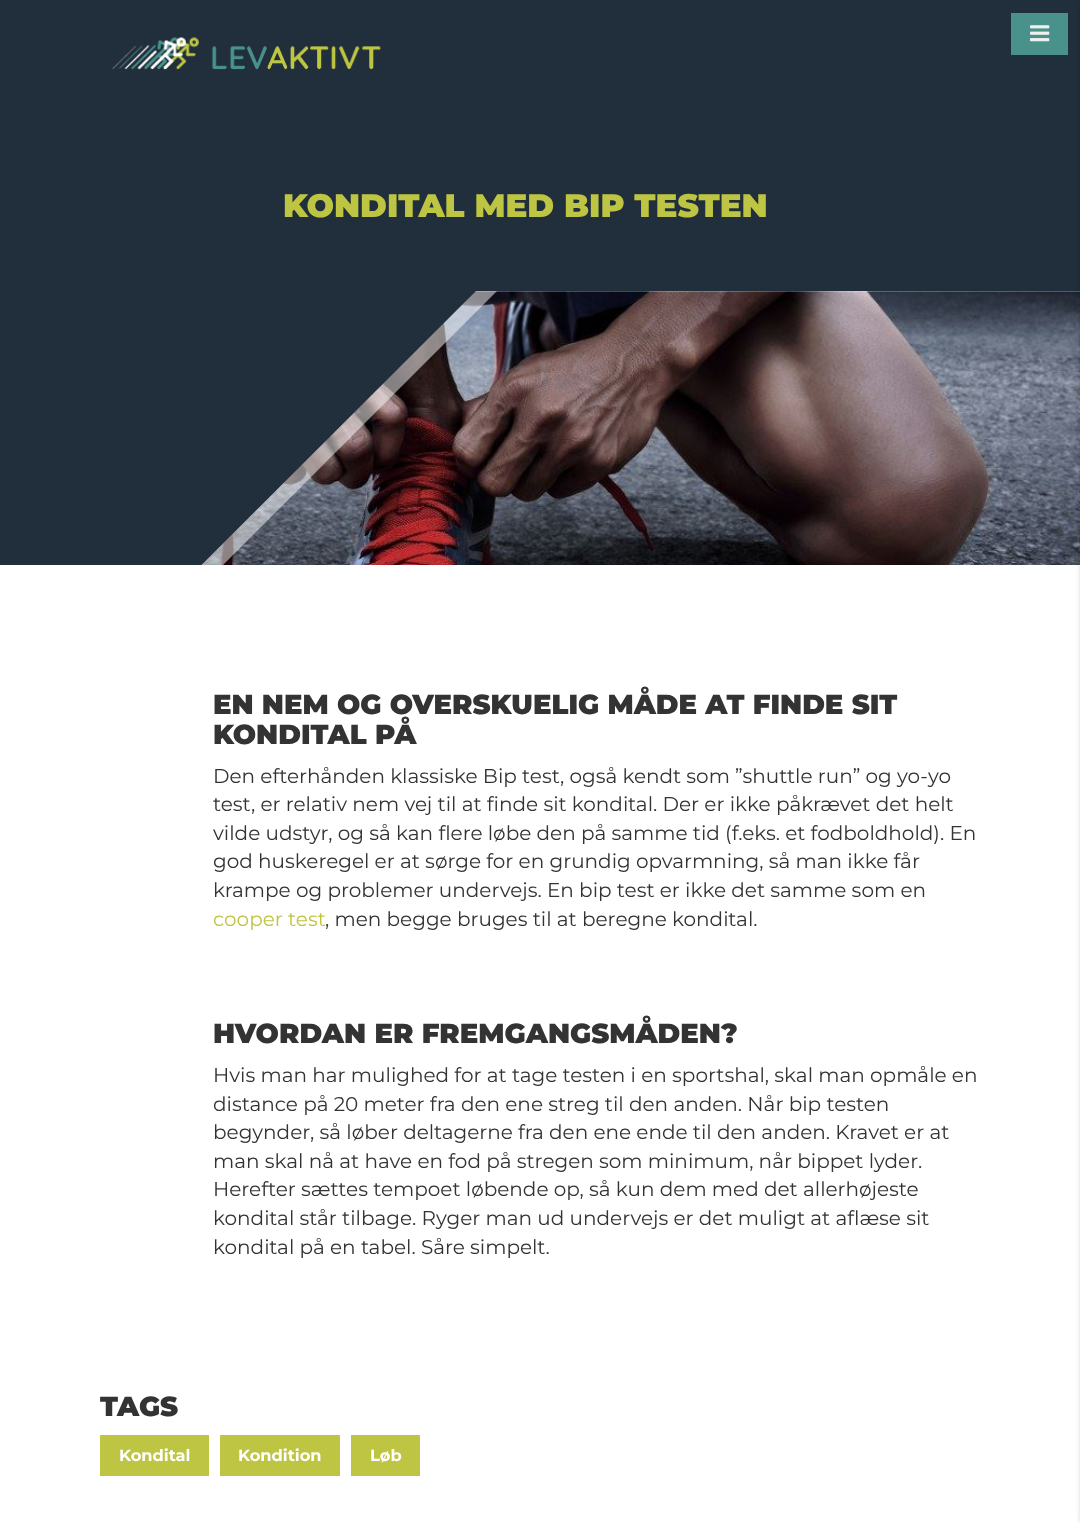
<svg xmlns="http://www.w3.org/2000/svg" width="1080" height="1522">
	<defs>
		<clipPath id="clip1"><rect x="0" y="291" width="1080" height="274" /></clipPath>
	</defs>
	<rect width="100%" height="100%" fill="#FFFFFF" />
	<rect x="0" y="0" width="1080" height="291" fill="#212F3C" />
	<image x="112" y="37" width="269" height="33" href="assets/img1.png" />
	<rect x="1011" y="13" width="57" height="42" fill="#49928B" />
	<image x="1030" y="25" width="20" height="17" href="assets/img2.png" />
	<image x="201" y="291" width="879" height="274" href="assets/img3.png" />
	<rect x="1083" y="0" width="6" height="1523" fill="#000000" fill-opacity="0.5" filter="blur(3px)" />
	<text x="283" y="217" font-family="Montserrat" font-size="32.5" font-weight="900" fill="#BEC543">KONDITAL MED BIP TESTEN</text>
	<g clip-path="url(#clip1)">
		<path d="M0-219L504 284L0 788L-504 284Z" fill="#FFFFFF" fill-opacity="0.5" />
		<path d="M-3-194L479 288L-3 769L-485 288Z" fill="#212F3C" />
	</g>
	<g font-family="Montserrat" font-size="27.5" font-weight="900" fill="#333333">
		<text x="213" y="714">EN NEM OG OVERSKUELIG MÅDE AT FINDE SIT</text>
		<text x="213" y="744">KONDITAL PÅ</text>
	</g>
	<g font-family="Montserrat" font-size="20" fill="#333333">
		<text x="213" y="783">Den efterhånden klassiske Bip test, også kendt som ”shuttle run” og yo-yo</text>
		<text x="213" y="811">test, er relativ nem vej til at finde sit kondital. Der er ikke påkrævet det helt</text>
		<text x="213" y="840">vilde udstyr, og så kan flere løbe den på samme tid (f.eks. et fodboldhold). En</text>
		<text x="213" y="868">god huskeregel er at sørge for en grundig opvarmning, så man ikke får</text>
		<text x="213" y="897">krampe og problemer undervejs. En bip test er ikke det samme som en</text>
	</g>
	<text x="213" y="926" font-family="Montserrat" font-size="20" fill="#BEC543">cooper test</text>
	<text x="325" y="926" font-family="Montserrat" font-size="20" fill="#333333">, men begge bruges til at beregne kondital.</text>
	<text x="213" y="1043" font-family="Montserrat" font-size="27.5" font-weight="900" fill="#333333">HVORDAN ER FREMGANGSMÅDEN?</text>
	<g font-family="Montserrat" font-size="20" fill="#333333">
		<text x="213" y="1082">Hvis man har mulighed for at tage testen i en sportshal, skal man opmåle en</text>
		<text x="213" y="1111">distance på 20 meter fra den ene streg til den anden. Når bip testen</text>
		<text x="213" y="1139">begynder, så løber deltagerne fra den ene ende til den anden. Kravet er at</text>
		<text x="213" y="1168">man skal nå at have en fod på stregen som minimum, når bippet lyder.</text>
		<text x="213" y="1196">Herefter sættes tempoet løbende op, så kun dem med det allerhøjeste</text>
		<text x="213" y="1225">kondital står tilbage. Ryger man ud undervejs er det muligt at aflæse sit</text>
		<text x="213" y="1254">kondital på en tabel. Såre simpelt.</text>
	</g>
	<text x="100" y="1416" font-family="Montserrat" font-size="27.5" font-weight="900" fill="#333333">TAGS</text>
	<rect x="100" y="1435" width="109" height="41" fill="#BEC543" />
	<text x="119" y="1461" font-family="Montserrat" font-size="16.25" font-weight="700" fill="#FFFFFF">Kondital</text>
	<rect x="220" y="1435" width="120" height="41" fill="#BEC543" />
	<text x="238" y="1461" font-family="Montserrat" font-size="16.25" font-weight="700" fill="#FFFFFF">Kondition</text>
	<rect x="351" y="1435" width="69" height="41" fill="#BEC543" />
	<text x="370" y="1461" font-family="Montserrat" font-size="16.25" font-weight="700" fill="#FFFFFF">Løb</text>
</svg>
